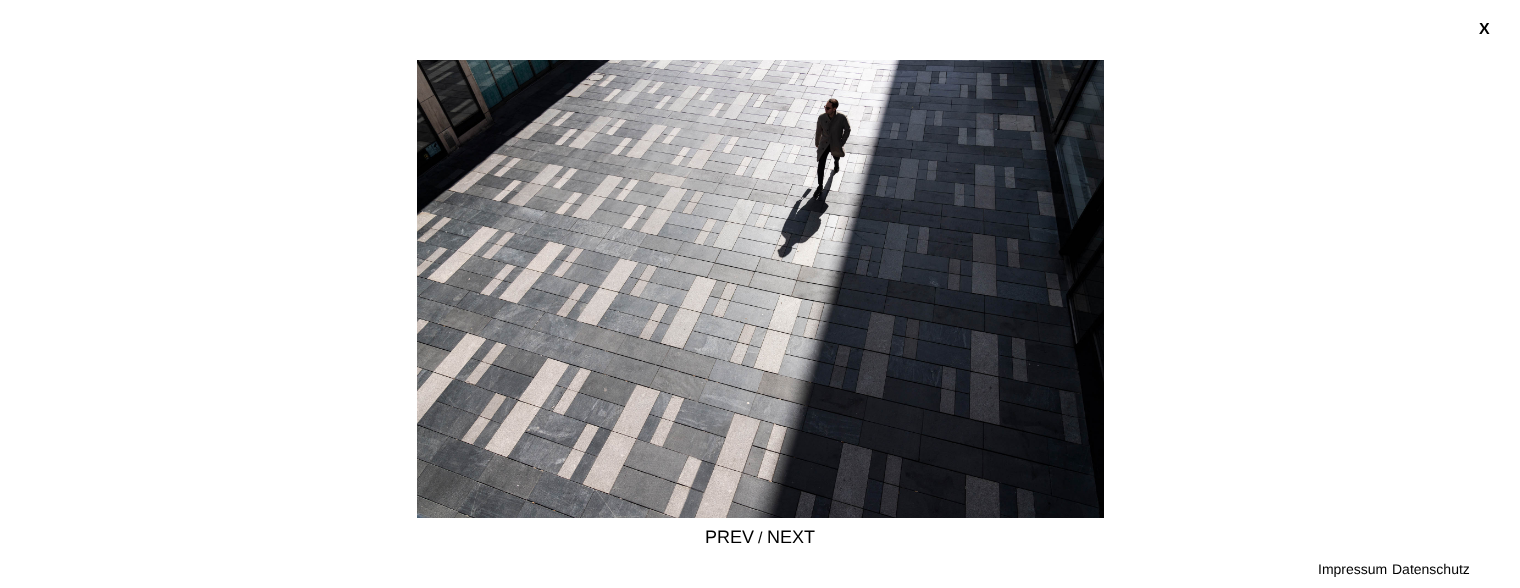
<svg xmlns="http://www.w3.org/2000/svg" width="1520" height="588">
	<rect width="100%" height="100%" fill="#FFFFFF" />
	<text x="1479" y="34" font-family="Liberation Sans" font-size="16" font-weight="700" fill="#000000">X</text>
	<image x="417" y="60" width="687" height="458" href="assets/img1.png" />
	<text x="705" y="543" font-family="Liberation Sans" font-size="18" fill="#000000">PREV</text>
	<text x="758" y="543" font-family="Liberation Sans" font-size="16" fill="#000000">/</text>
	<text x="767" y="543" font-family="Liberation Sans" font-size="18" fill="#000000">NEXT</text>
	<g font-family="Liberation Sans" font-size="14" fill="#000000">
		<text x="1318" y="574">Impressum</text>
		<text x="1392" y="574">Datenschutz</text>
	</g>
</svg>
